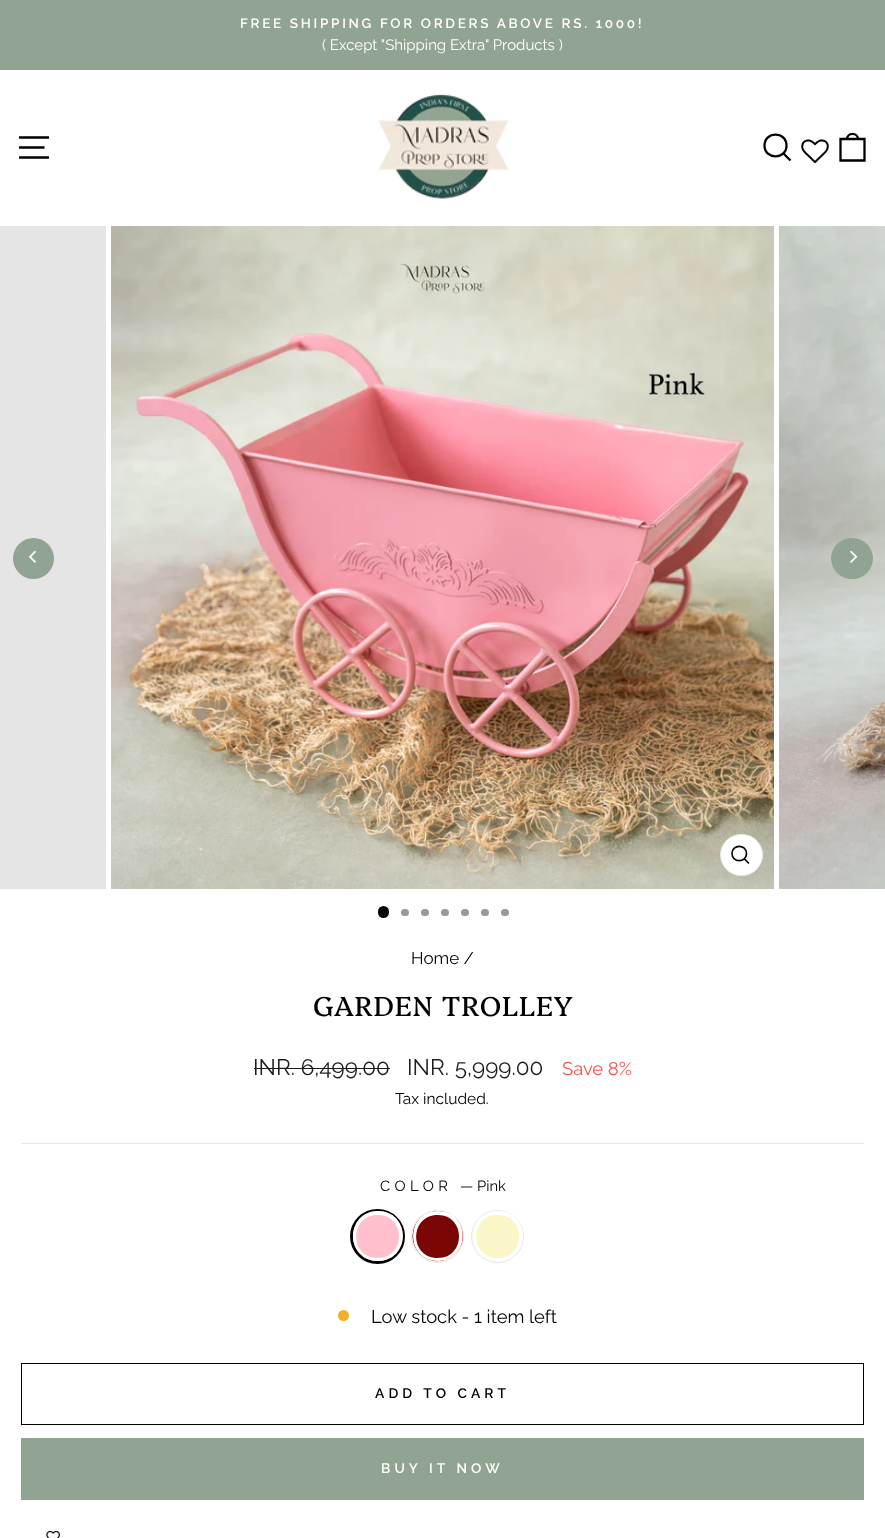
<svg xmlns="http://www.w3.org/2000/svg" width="885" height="1538">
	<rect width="100%" height="100%" fill="#FFFFFF" />
	<rect x="0" y="0" width="885" height="70" fill="#91A491" />
	<text x="240" y="28" font-family="Raleway" font-size="13.5" font-weight="600" letter-spacing="2.7" fill="#FFFFFF">FREE SHIPPING FOR ORDERS ABOVE RS. 1000!</text>
	<text x="322" y="50" font-family="Raleway" font-size="15" fill="#FFFFFF">( Except "Shipping Extra" Products )</text>
	<rect x="0" y="226" width="106" height="663" fill="#E5E5E5" />
	<image x="111" y="226" width="663" height="663" href="assets/img3.png" />
	<image x="779" y="226" width="106" height="663" href="assets/img4.png" />
	<rect x="0" y="70" width="885" height="156" fill="#000000" fill-opacity="0.2" filter="blur(0.5px)" />
	<rect x="0" y="70" width="885" height="156" fill="#FFFFFF" />
	<path d="M19 137.5H49M19 147.5H44.5M19 157.5H49" fill="none" stroke="#000000" stroke-width="2.3" />
	<image x="378" y="94" width="131" height="105" href="assets/img1.png" />
	<path d="M786.5 145.5C786.5 160 764.5 160 764.5 145.5C764.5 131 786.5 131 786.5 145.5ZM790.5 160.5L783.5 153.5" fill="none" stroke="#000000" stroke-width="2.3" />
	<image x="801" y="139" width="28" height="24" href="assets/img2.png" />
	<path d="M840.5 139H864.5V160.5H840.5ZM847 139.5C847 132 858 132 858 139.5" fill="none" stroke="#000000" stroke-width="2.3" />
	<rect x="720.5" y="834.5" width="42" height="41" rx="20.5" fill="#FFFFFF" stroke="#E8E8E1" />
	<path d="M746.5 853.5C746.5 863 732 863 732 853.5C732 844 746.5 844 746.5 853.5ZM749 863.5L744.5 859" fill="none" stroke="#000000" stroke-width="1.6" />
	<circle cx="33.5" cy="558.5" r="20.5" fill="#91A491" />
	<image x="28" y="551" width="8" height="12" href="assets/img5.png" />
	<rect x="831" y="538" width="42" height="41" rx="20.5" fill="#91A491" />
	<image x="850" y="551" width="8" height="12" href="assets/img6.png" />
	<rect x="378" y="906" width="11" height="12" rx="5.5" fill="#000000" />
	<rect x="401" y="909" width="8" height="7" rx="3.5" fill="#999999" />
	<rect x="421" y="909" width="8" height="7" rx="3.5" fill="#999999" />
	<rect x="441" y="909" width="8" height="7" rx="3.5" fill="#999999" />
	<rect x="461" y="909" width="8" height="7" rx="3.5" fill="#999999" />
	<rect x="481" y="909" width="8" height="7" rx="3.5" fill="#999999" />
	<rect x="501" y="909" width="8" height="7" rx="3.5" fill="#999999" />
	<text x="411" y="964" font-family="Raleway" font-size="17" fill="#000000">Home /</text>
	<text x="313" y="1016" font-family="Platypi" font-size="27.4" letter-spacing="0.75" fill="#000000">GARDEN TROLLEY</text>
	<text x="253" y="1075" font-family="Raleway" font-size="22.5" fill="#1C1D1D">INR. 6,499.00</text>
	<rect x="254" y="1068" width="136" height="1" fill="#1C1D1D" />
	<text x="407" y="1075" font-family="Raleway" font-size="22.5" fill="#1C1D1D">INR. 5,999.00</text>
	<text x="562" y="1075" font-family="Raleway" font-size="18.4" fill="#FF4E4E">Save 8%</text>
	<text x="395" y="1104" font-family="Raleway" font-size="15.5" fill="#000000">Tax included.</text>
	<rect x="21" y="1143" width="843" height="1" fill="#E8E8E1" />
	<text x="380" y="1191" font-family="Raleway" font-size="14.75" letter-spacing="4.5" fill="#000000">COLOR</text>
	<text x="460" y="1191" font-family="Raleway" font-size="14.75" fill="#000000">— Pink</text>
	<circle cx="377.5" cy="1236.5" r="26" fill="none" stroke="#000000" stroke-width="3" />
	<circle cx="378" cy="1236" r="25" fill="#FFC0CB" />
	<path d="M378 1211C345 1211 345 1261 378 1261C411 1261 411 1211 378 1211ZM378 1215C349 1215 349 1258 378 1258C406 1258 406 1215 378 1215Z" fill="#FFFFFF" fill-rule="evenodd" />
	<circle cx="437.5" cy="1236.5" r="26" fill="none" stroke="#E8E8E1" />
	<circle cx="438" cy="1236" r="25" fill="#FF0000" />
	<image x="412" y="1211" width="51" height="51" href="assets/img7.png" />
	<path d="M438 1211C405 1211 405 1261 438 1261C471 1261 471 1211 438 1211ZM438 1215C409 1215 409 1258 438 1258C466 1258 466 1215 438 1215Z" fill="#FFFFFF" fill-rule="evenodd" />
	<circle cx="497.5" cy="1236.5" r="26" fill="none" stroke="#E8E8E1" />
	<circle cx="498" cy="1236" r="25" fill="#FFFFFF" />
	<image x="472" y="1211" width="51" height="51" href="assets/img8.png" />
	<path d="M498 1211C465 1211 465 1261 498 1261C531 1261 531 1211 498 1211ZM498 1215C469 1215 469 1258 498 1258C526 1258 526 1215 498 1215Z" fill="#FFFFFF" fill-rule="evenodd" />
	<circle cx="343.5" cy="1315.5" r="5.5" fill="#F4AF29" />
	<text x="371" y="1323" font-family="Raleway" font-size="18.4" fill="#000000">Low stock - 1 item left</text>
	<rect x="21.5" y="1363.5" width="842" height="61" fill="none" stroke="#000000" />
	<text x="375" y="1398" font-family="Raleway" font-size="13.75" font-weight="600" letter-spacing="4.1" fill="#000000">ADD TO CART</text>
	<rect x="21" y="1438" width="843" height="62" fill="#91A491" />
	<text x="381" y="1473" font-family="Raleway" font-size="13.75" font-weight="600" letter-spacing="4.1" fill="#FFFFFF">BUY IT NOW</text>
	<image x="46" y="1530" width="14" height="8" href="assets/img9.png" />
</svg>
